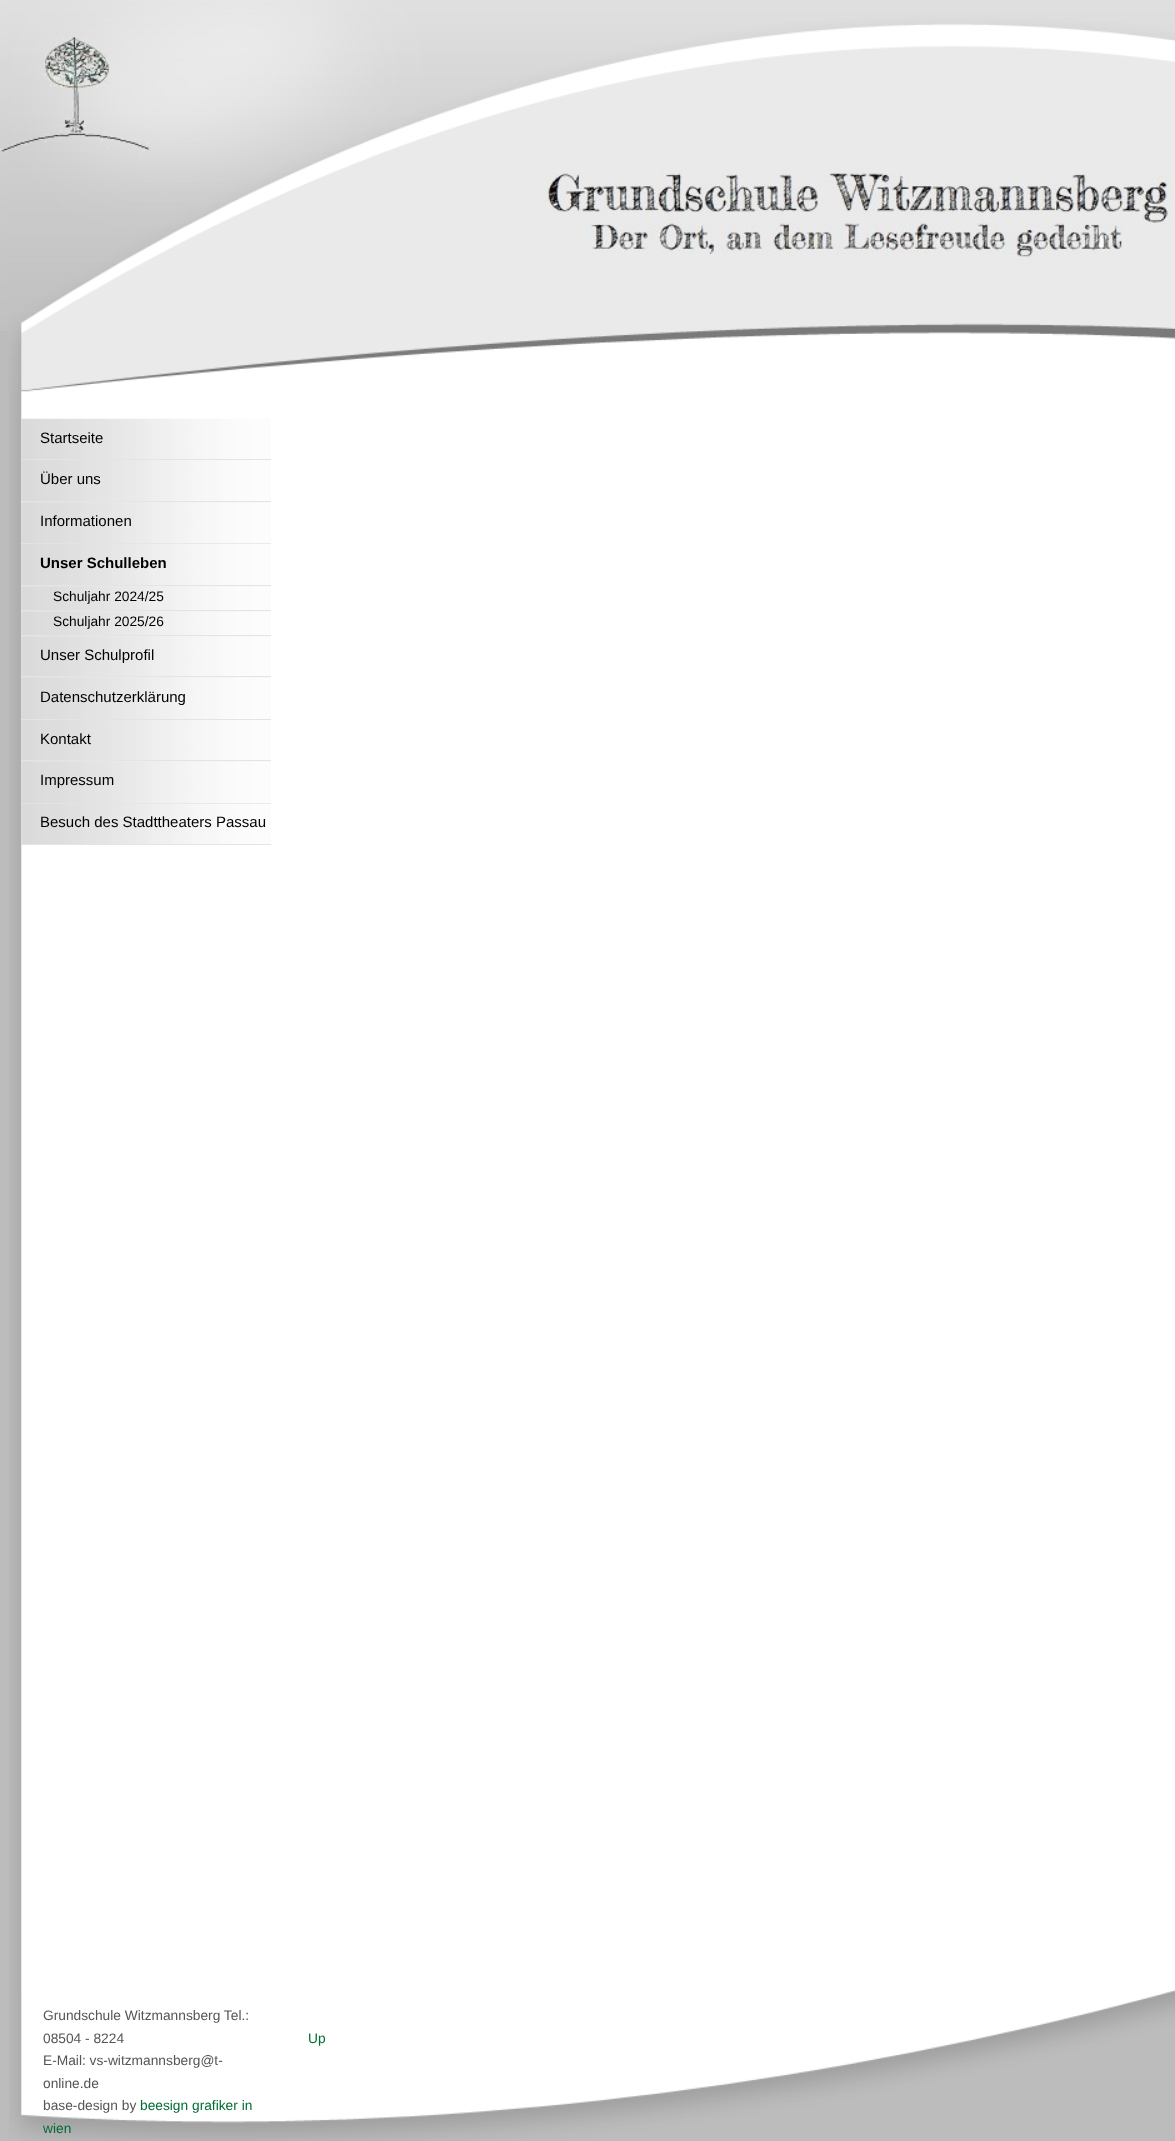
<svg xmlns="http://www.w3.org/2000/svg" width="1175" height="2141">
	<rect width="100%" height="100%" fill="#BCBCBC" />
	<image x="0" y="0" width="8" height="331" href="assets/img1.png" />
	<image x="9" y="332" width="1166" height="1809" href="assets/img2.png" />
	<image x="21" y="46" width="1154" height="346" href="assets/img3.png" />
	<image x="8" y="0" width="1167" height="393" href="assets/img4.png" />
	<image x="0" y="37" width="149" height="118" href="assets/img5.png" />
	<image x="21" y="418" width="250" height="41" href="assets/img6.png" />
	<rect x="21" y="459" width="250" height="1" fill="#E4E4E4" />
	<text x="40" y="443" font-family="Liberation Sans" font-size="15" fill="#000000">Startseite</text>
	<rect x="21" y="460" width="250" height="43" fill="#EDEDED" />
	<image x="21" y="460" width="250" height="43" href="assets/img7.png" />
	<rect x="21" y="501" width="250" height="1" fill="#E4E4E4" />
	<text x="40" y="484" font-family="Liberation Sans" font-size="15" fill="#000000">Über uns</text>
	<image x="21" y="502" width="250" height="41" href="assets/img8.png" />
	<rect x="21" y="543" width="250" height="1" fill="#E4E4E4" />
	<text x="40" y="526" font-family="Liberation Sans" font-size="15" fill="#000000">Informationen</text>
	<image x="21" y="543" width="250" height="42" href="assets/img9.png" />
	<rect x="21" y="585" width="250" height="1" fill="#E4E4E4" />
	<text x="40" y="568" font-family="Liberation Sans" font-size="15" font-weight="700" fill="#000000">Unser Schulleben</text>
	<rect x="21" y="586" width="250" height="24" fill="#EDEDED" />
	<image x="21" y="586" width="250" height="24" href="assets/img10.png" />
	<rect x="21" y="610" width="250" height="1" fill="#E4E4E4" />
	<text x="53" y="601" font-family="Liberation Sans" font-size="13.75" fill="#000000">Schuljahr 2024/25</text>
	<rect x="21" y="611" width="250" height="24" fill="#EDEDED" />
	<image x="21" y="611" width="250" height="24" href="assets/img10.png" />
	<rect x="21" y="635" width="250" height="1" fill="#E4E4E4" />
	<text x="53" y="626" font-family="Liberation Sans" font-size="13.75" fill="#000000">Schuljahr 2025/26</text>
	<rect x="21" y="636" width="250" height="42" fill="#EDEDED" />
	<image x="21" y="636" width="250" height="42" href="assets/img11.png" />
	<rect x="21" y="676" width="250" height="1" fill="#E4E4E4" />
	<text x="40" y="660" font-family="Liberation Sans" font-size="15" fill="#000000">Unser Schulprofil</text>
	<image x="21" y="677" width="250" height="42" href="assets/img12.png" />
	<rect x="21" y="719" width="250" height="1" fill="#E4E4E4" />
	<text x="40" y="702" font-family="Liberation Sans" font-size="15" fill="#000000">Datenschutzerklärung</text>
	<image x="21" y="720" width="250" height="40" href="assets/img13.png" />
	<rect x="21" y="760" width="250" height="1" fill="#E4E4E4" />
	<text x="40" y="744" font-family="Liberation Sans" font-size="15" fill="#000000">Kontakt</text>
	<rect x="21" y="761" width="250" height="42" fill="#EDEDED" />
	<image x="21" y="761" width="250" height="42" href="assets/img14.png" />
	<rect x="21" y="803" width="250" height="1" fill="#E4E4E4" />
	<text x="40" y="785" font-family="Liberation Sans" font-size="15" fill="#000000">Impressum</text>
	<image x="21" y="803" width="250" height="41" href="assets/img15.png" />
	<rect x="21" y="844" width="250" height="1" fill="#E4E4E4" />
	<text x="40" y="827" font-family="Liberation Sans" font-size="15" fill="#000000">Besuch des Stadttheaters Passau</text>
	<image x="10" y="1990" width="1165" height="151" href="assets/img16.png" />
	<g font-family="Liberation Sans" font-size="13.75" fill="#555555">
		<text x="43" y="2020">Grundschule Witzmannsberg Tel.:</text>
		<text x="43" y="2043">08504 - 8224</text>
		<text x="43" y="2065">E-Mail: vs-witzmannsberg@t-</text>
		<text x="43" y="2088">online.de</text>
		<text x="43" y="2110">base-design by</text>
	</g>
	<g font-family="Liberation Sans" font-size="13.75" fill="#006E34">
		<text x="140" y="2110">beesign grafiker in</text>
		<text x="43" y="2133">wien</text>
		<text x="308" y="2043">Up</text>
	</g>
</svg>
